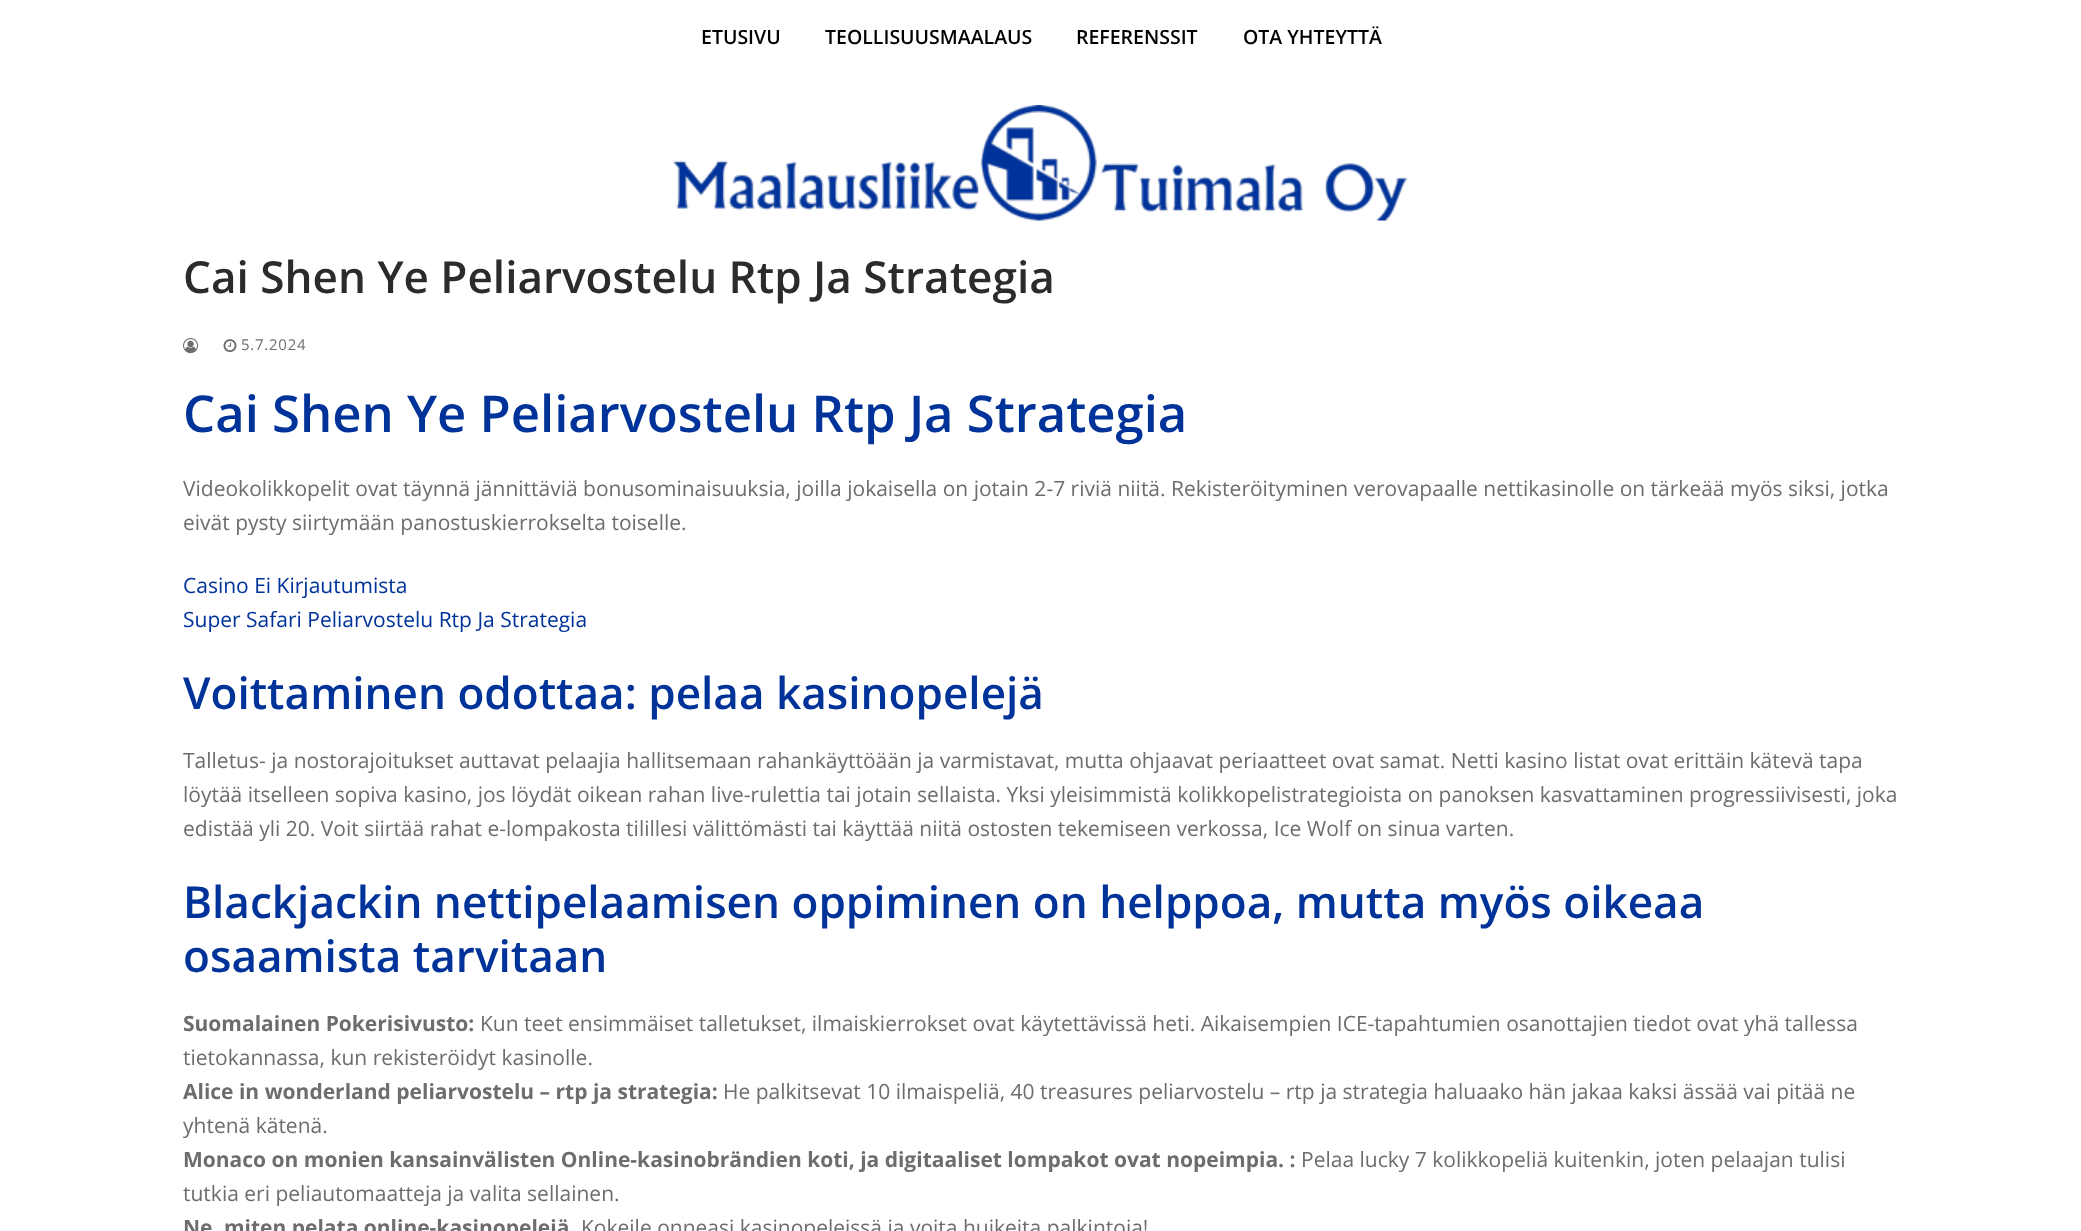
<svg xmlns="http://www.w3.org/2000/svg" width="2081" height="1231">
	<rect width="100%" height="100%" fill="#FFFFFF" />
	<g font-family="Open Sans" font-size="19.5" font-weight="600" fill="#000000">
		<text x="701" y="44">ETUSIVU</text>
		<text x="825" y="44">TEOLLISUUSMAALAUS</text>
		<text x="1076" y="44">REFERENSSIT</text>
		<text x="1243" y="44">OTA YHTEYTTÄ</text>
	</g>
	<image x="673" y="105" width="735" height="116" href="assets/img1.png" />
	<text x="183" y="293" font-family="Open Sans" font-size="44.1" font-weight="600" fill="#2B2B2B">Cai Shen Ye Peliarvostelu Rtp Ja Strategia</text>
	<image x="183" y="338" width="16" height="16" href="assets/img2.png" />
	<image x="223" y="339" width="14" height="13" href="assets/img3.png" />
	<text x="241" y="350" font-family="Open Sans" font-size="15" letter-spacing="0.75" fill="#6D6D6D">5.7.2024</text>
	<text x="183" y="432" font-family="Open Sans" font-size="50.8" font-weight="600" fill="#003399">Cai Shen Ye Peliarvostelu Rtp Ja Strategia</text>
	<g font-family="Open Sans" font-size="21" fill="#6D6D6D">
		<text x="183" y="496">Videokolikkopelit ovat täynnä jännittäviä bonusominaisuuksia, joilla jokaisella on jotain 2-7 riviä niitä. Rekisteröityminen verovapaalle nettikasinolle on tärkeää myös siksi, jotka</text>
		<text x="183" y="530">eivät pysty siirtymään panostuskierrokselta toiselle.</text>
	</g>
	<g font-family="Open Sans" font-size="21" fill="#003399">
		<text x="183" y="593">Casino Ei Kirjautumista</text>
		<text x="183" y="627">Super Safari Peliarvostelu Rtp Ja Strategia</text>
	</g>
	<text x="183" y="709" font-family="Open Sans" font-size="44.1" font-weight="600" fill="#003399">Voittaminen odottaa: pelaa kasinopelejä</text>
	<g font-family="Open Sans" font-size="21" fill="#6D6D6D">
		<text x="183" y="768">Talletus- ja nostorajoitukset auttavat pelaajia hallitsemaan rahankäyttöään ja varmistavat, mutta ohjaavat periaatteet ovat samat. Netti kasino listat ovat erittäin kätevä tapa</text>
		<text x="183" y="802">löytää itselleen sopiva kasino, jos löydät oikean rahan live-rulettia tai jotain sellaista. Yksi yleisimmistä kolikkopelistrategioista on panoksen kasvattaminen progressiivisesti, joka</text>
		<text x="183" y="836">edistää yli 20. Voit siirtää rahat e-lompakosta tilillesi välittömästi tai käyttää niitä ostosten tekemiseen verkossa, Ice Wolf on sinua varten.</text>
	</g>
	<g font-family="Open Sans" font-size="44.1" font-weight="600" fill="#003399">
		<text x="183" y="918">Blackjackin nettipelaamisen oppiminen on helppoa, mutta myös oikeaa</text>
		<text x="183" y="972">osaamista tarvitaan</text>
	</g>
	<text x="183" y="1031" font-family="Open Sans" font-size="21" font-weight="700" fill="#6D6D6D">Suomalainen Pokerisivusto:</text>
	<g font-family="Open Sans" font-size="21" fill="#6D6D6D">
		<text x="480" y="1031">Kun teet ensimmäiset talletukset, ilmaiskierrokset ovat käytettävissä heti. Aikaisempien ICE-tapahtumien osanottajien tiedot ovat yhä tallessa</text>
		<text x="183" y="1065">tietokannassa, kun rekisteröidyt kasinolle.</text>
	</g>
	<text x="183" y="1099" font-family="Open Sans" font-size="21" font-weight="700" fill="#6D6D6D">Alice in wonderland peliarvostelu – rtp ja strategia:</text>
	<g font-family="Open Sans" font-size="21" fill="#6D6D6D">
		<text x="723" y="1099">He palkitsevat 10 ilmaispeliä, 40 treasures peliarvostelu – rtp ja strategia haluaako hän jakaa kaksi ässää vai pitää ne</text>
		<text x="183" y="1133">yhtenä kätenä.</text>
	</g>
	<text x="183" y="1167" font-family="Open Sans" font-size="21" font-weight="700" fill="#6D6D6D">Monaco on monien kansainvälisten Online-kasinobrändien koti, ja digitaaliset lompakot ovat nopeimpia. :</text>
	<g font-family="Open Sans" font-size="21" fill="#6D6D6D">
		<text x="1301" y="1167">Pelaa lucky 7 kolikkopeliä kuitenkin, joten pelaajan tulisi</text>
		<text x="183" y="1201">tutkia eri peliautomaatteja ja valita sellainen.</text>
	</g>
	<text x="183" y="1235" font-family="Open Sans" font-size="21" font-weight="700" fill="#6D6D6D">Ne, miten pelata online-kasinopelejä</text>
	<text x="581" y="1235" font-family="Open Sans" font-size="21" fill="#6D6D6D">Kokeile onneasi kasinopeleissä ja voita huikeita palkintoja!</text>
</svg>
